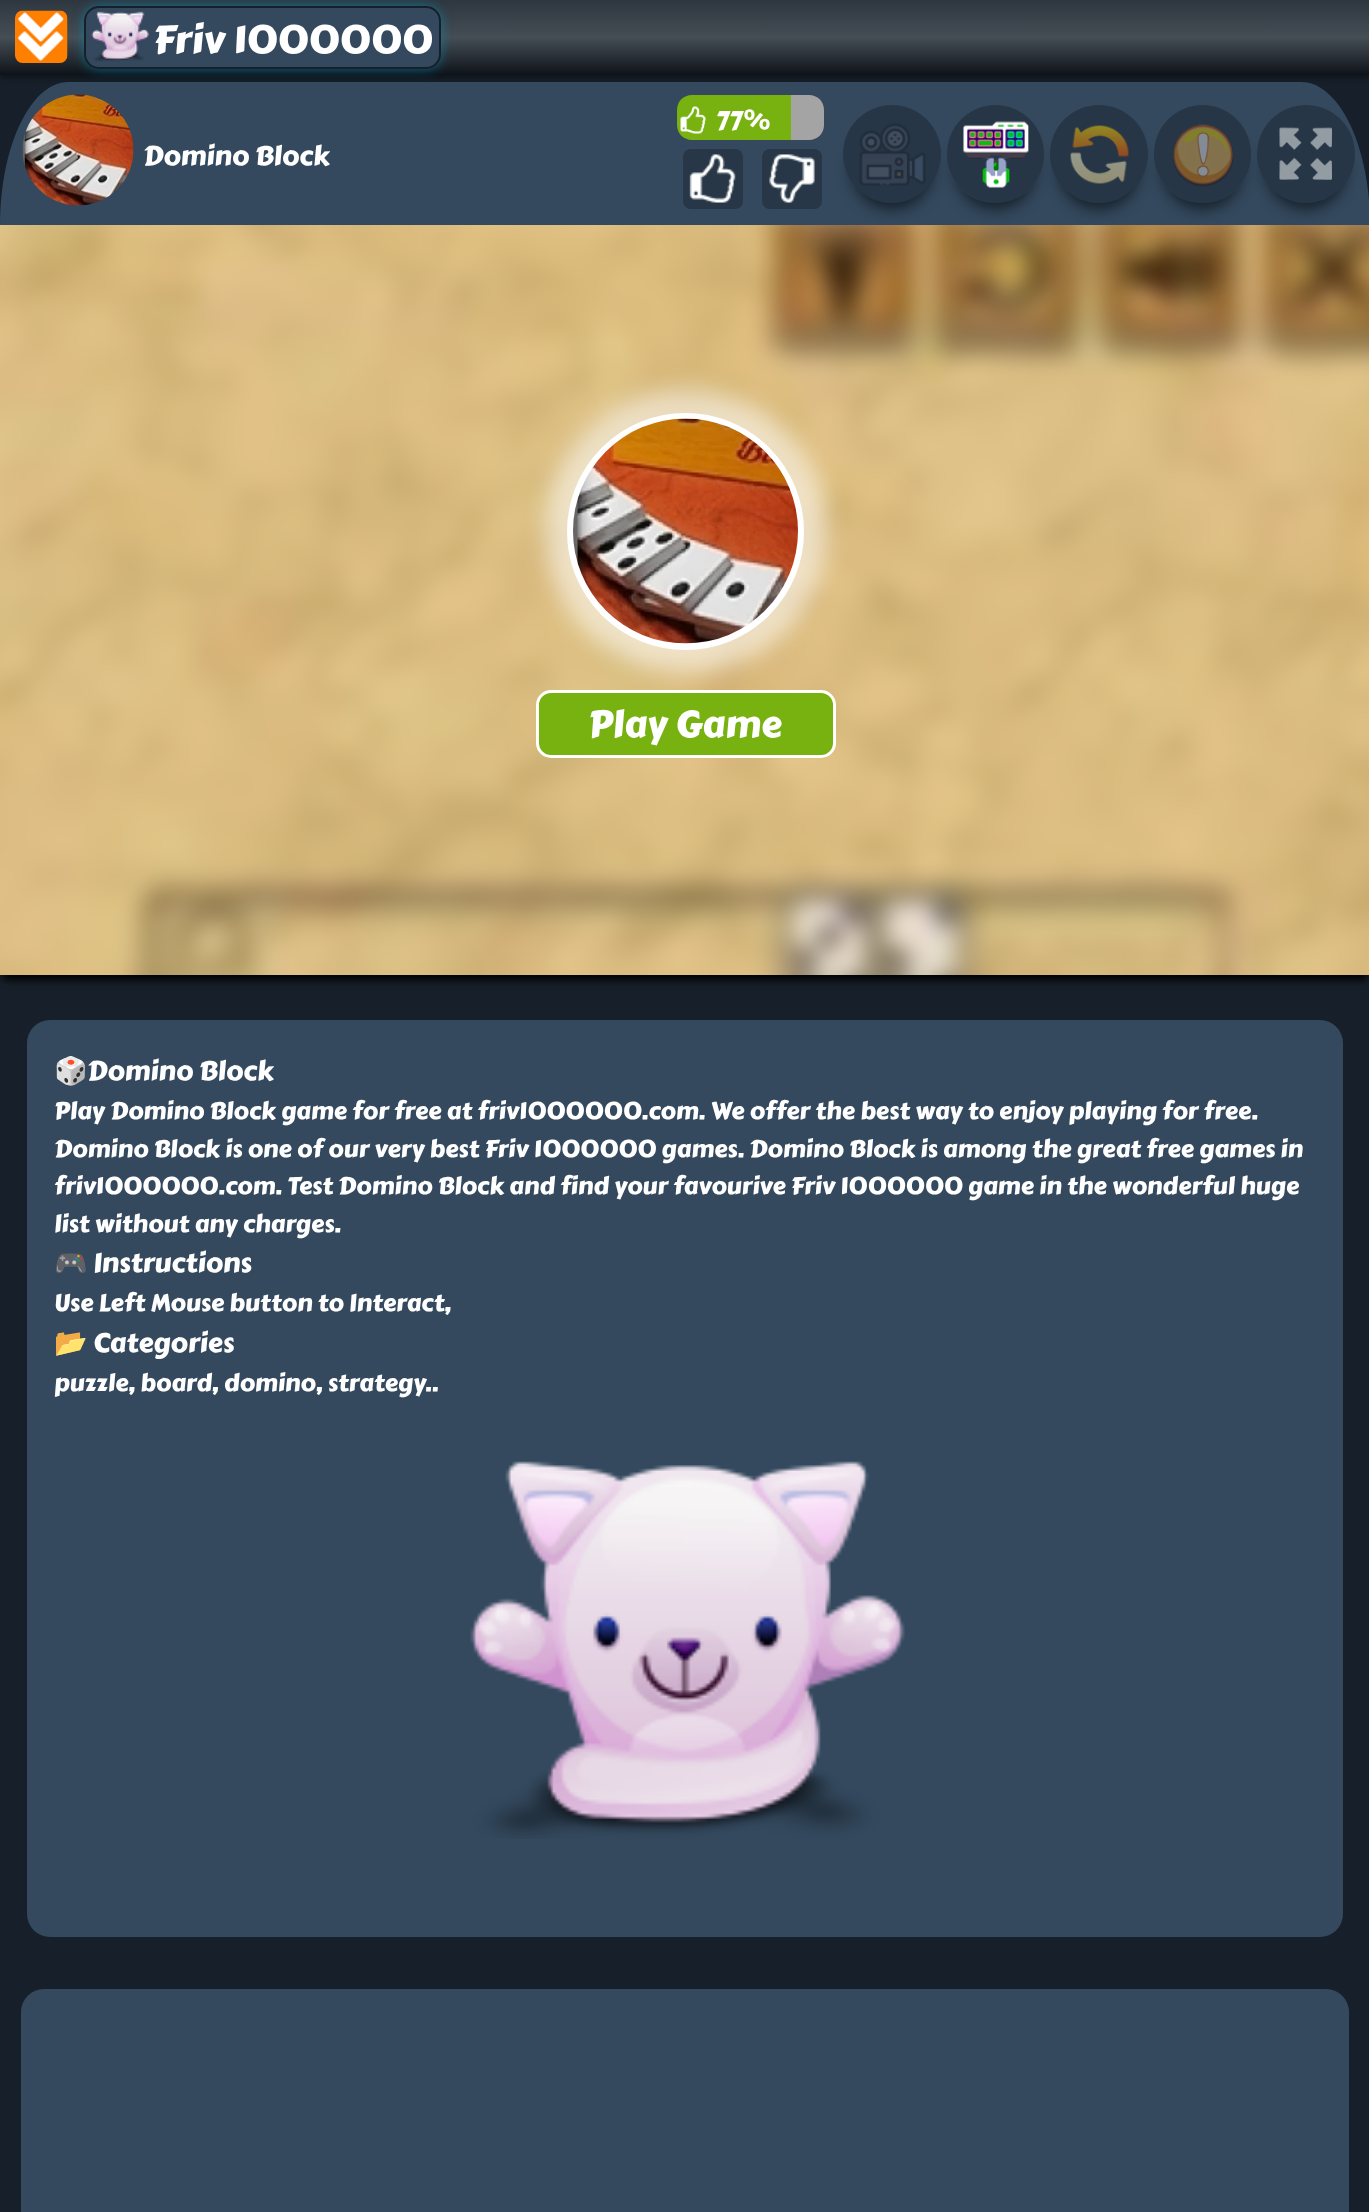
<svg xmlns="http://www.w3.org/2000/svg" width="1369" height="2212">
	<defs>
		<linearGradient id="g1" gradientUnits="userSpaceOnUse" x1="685" y1="0" x2="685" y2="75"><stop offset="0" stop-color="#2E363F" /><stop offset="0.5" stop-color="#454D55" /><stop offset="1" stop-color="#0E1319" /></linearGradient>
		<clipPath id="clip1"><path d="M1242 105H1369V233H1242ZM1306 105C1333 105 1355 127 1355 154C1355 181 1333 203 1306 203C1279 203 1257 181 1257 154C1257 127 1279 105 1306 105Z" clip-rule="evenodd" /></clipPath>
		<clipPath id="clip2"><path d="M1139 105H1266V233H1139ZM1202.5 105C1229.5 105 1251 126.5 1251 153.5V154.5C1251 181.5 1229.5 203 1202.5 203C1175.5 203 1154 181.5 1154 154.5V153.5C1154 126.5 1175.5 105 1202.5 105Z" clip-rule="evenodd" /></clipPath>
		<clipPath id="clip3"><path d="M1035 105H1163V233H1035ZM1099 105C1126 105 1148 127 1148 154C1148 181 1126 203 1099 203C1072 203 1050 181 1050 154C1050 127 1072 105 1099 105Z" clip-rule="evenodd" /></clipPath>
		<clipPath id="clip4"><path d="M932 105H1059V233H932ZM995.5 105C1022.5 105 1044 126.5 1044 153.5V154.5C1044 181.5 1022.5 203 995.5 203C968.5 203 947 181.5 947 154.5V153.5C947 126.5 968.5 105 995.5 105Z" clip-rule="evenodd" /></clipPath>
		<clipPath id="clip5"><path d="M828 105H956V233H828ZM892 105C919 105 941 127 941 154C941 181 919 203 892 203C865 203 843 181 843 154C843 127 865 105 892 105Z" clip-rule="evenodd" /></clipPath>
	</defs>
	<rect width="100%" height="100%" fill="#17202A" />
	<rect x="0" y="3" width="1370" height="75" fill="#000000" fill-opacity="0.4" filter="blur(3px)" />
	<rect x="0" y="0" width="1369" height="75" fill="url(#g1)" />
	<image x="15" y="10" width="53" height="53" href="assets/img1.png" />
	<rect x="84" y="6" width="357" height="63" rx="15" fill="#0092BF" fill-opacity="0.6" filter="blur(6px)" />
	<rect x="85" y="7" width="355" height="61" rx="14" fill="#34495E" stroke="#17202A" stroke-width="2" />
	<image x="91" y="11" width="58" height="51" href="assets/img2.png" />
	<text x="153" y="53" font-family="Carter One" font-size="39" fill="#FFFFFF">Friv 1000000</text>
	<path d="M68 82H1301C1339 82 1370 146 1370 225H0C0 146 31 82 68 82Z" fill="#34495E" />
	<image x="22" y="94" width="112" height="112" href="assets/img3.png" />
	<path d="M692 95H791V140H692C683.5 140 677 133.5 677 125V110C677 101.5 683.5 95 692 95Z" fill="#77B211" />
	<image x="680" y="106" width="26" height="28" href="assets/img4.png" />
	<text x="716" y="129" font-family="Carter One" font-size="25.5" fill="#FFFFFF">77%</text>
	<path d="M791 95H809C817.5 95 824 101.5 824 110V125C824 133.5 817.5 140 809 140H791Z" fill="#A4A4A4" />
	<rect x="683" y="149" width="60" height="60" rx="8" fill="#273747" />
	<image x="689" y="154" width="47" height="49" href="assets/img5.png" />
	<rect x="762" y="149" width="60" height="60" rx="8" fill="#273747" />
	<image x="769" y="154" width="46" height="49" href="assets/img6.png" />
	<g clip-path="url(#clip1)">
		<rect x="1266" y="129" width="80" height="80" rx="40" fill="#000000" fill-opacity="0.6" filter="blur(7.5px)" />
	</g>
	<circle cx="1306" cy="154" r="49" fill="#000000" fill-opacity="0.25" />
	<g clip-path="url(#clip2)">
		<rect x="1163" y="129" width="79" height="80" rx="39.5" fill="#000000" fill-opacity="0.6" filter="blur(7.5px)" />
	</g>
	<rect x="1154" y="105" width="97" height="98" rx="48.5" fill="#000000" fill-opacity="0.25" />
	<g clip-path="url(#clip3)">
		<rect x="1059" y="129" width="80" height="80" rx="40" fill="#000000" fill-opacity="0.6" filter="blur(7.5px)" />
	</g>
	<circle cx="1099" cy="154" r="49" fill="#000000" fill-opacity="0.25" />
	<g clip-path="url(#clip4)">
		<rect x="956" y="129" width="79" height="80" rx="39.5" fill="#000000" fill-opacity="0.6" filter="blur(7.5px)" />
	</g>
	<rect x="947" y="105" width="97" height="98" rx="48.5" fill="#000000" fill-opacity="0.25" />
	<g clip-path="url(#clip5)">
		<rect x="852" y="129" width="80" height="80" rx="40" fill="#000000" fill-opacity="0.6" filter="blur(7.5px)" />
	</g>
	<circle cx="892" cy="154" r="49" fill="#000000" fill-opacity="0.25" />
	<image x="859" y="123" width="67" height="63" href="assets/img7.png" />
	<image x="963" y="121" width="66" height="67" href="assets/img8.png" />
	<image x="1070" y="125" width="59" height="59" href="assets/img9.png" />
	<image x="1173" y="124" width="61" height="63" href="assets/img10.png" />
	<image x="1279" y="127" width="53" height="53" href="assets/img11.png" />
	<text x="143" y="165" font-family="Carter One" font-size="27" fill="#FFFFFF">Domino Block</text>
	<rect x="3" y="236" width="1364" height="744" fill="#000000" filter="blur(4px)" />
	<image x="0" y="225" width="1369" height="750" href="assets/img12.png" />
	<rect x="545" y="390" width="282" height="282" rx="141" fill="#FFFFFF" fill-opacity="0.55" filter="blur(11px)" />
	<circle cx="685.5" cy="531.5" r="115.5" fill="#FFFFFF" stroke="#FFFFFF" stroke-width="6" />
	<image x="573" y="418" width="225" height="226" href="assets/img13.png" />
	<rect x="537.5" y="691.5" width="297" height="65" rx="13.5" fill="#77B211" stroke="#FFFFFF" stroke-width="3" />
	<text x="588" y="737" font-family="Carter One" font-size="37.5" fill="#FFFFFF">Play Game</text>
	<rect x="27" y="1020" width="1316" height="917" rx="23" fill="#34495E" />
	<text x="54" y="1080" font-family="Noto Color Emoji" font-size="27" fill="#FFFFFF">🎲</text>
	<text x="87" y="1080" font-family="Carter One" font-size="27" fill="#FFFFFF">Domino Block</text>
	<g font-family="Carter One" font-size="24" fill="#FFFFFF">
		<text x="54" y="1119">Play Domino Block game for free at friv1000000.com. We offer the best way to enjoy playing for free.</text>
		<text x="54" y="1157">Domino Block is one of our very best Friv 1000000 games. Domino Block is among the great free games in</text>
		<text x="54" y="1194">friv1000000.com. Test Domino Block and find your favourive Friv 1000000 game in the wonderful huge</text>
		<text x="54" y="1232">list without any charges.</text>
	</g>
	<text x="54" y="1272" font-family="Noto Color Emoji" font-size="27" fill="#FFFFFF">🎮</text>
	<text x="93" y="1272" font-family="Carter One" font-size="27" fill="#FFFFFF">Instructions</text>
	<text x="54" y="1311" font-family="Carter One" font-size="24" fill="#FFFFFF">Use Left Mouse button to Interact,</text>
	<text x="54" y="1352" font-family="Noto Color Emoji" font-size="27" fill="#FFFFFF">📂</text>
	<text x="93" y="1352" font-family="Carter One" font-size="27" fill="#FFFFFF">Categories</text>
	<g font-family="Carter One" font-size="24" fill="#FFFFFF">
		<text x="54" y="1391">puzzle, board, domino, strategy</text>
		<text x="425" y="1391">..</text>
	</g>
	<image x="470" y="1461" width="435" height="378" href="assets/img14.png" />
	<rect x="21" y="1989" width="1328" height="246" rx="23" fill="#34495E" />
</svg>
